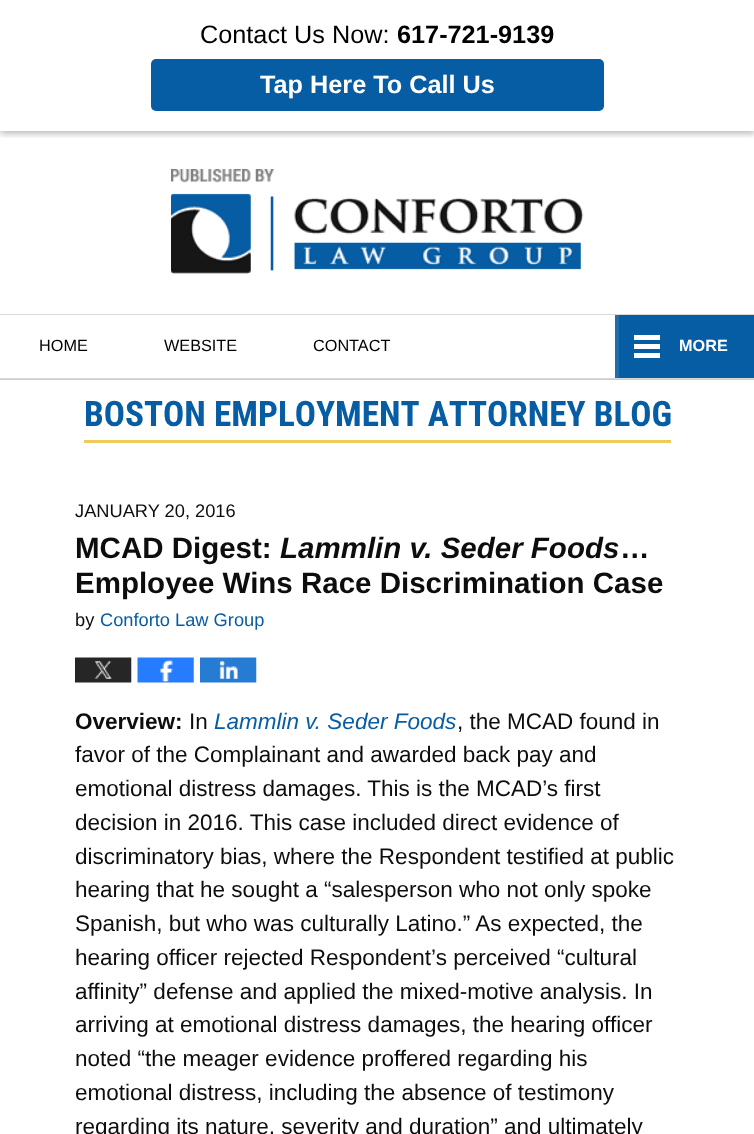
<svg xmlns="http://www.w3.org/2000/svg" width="754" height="1134">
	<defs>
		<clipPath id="clip1"><rect x="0" y="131" width="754" height="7" /></clipPath>
	</defs>
	<rect width="100%" height="100%" fill="#FFFFFF" />
	<g clip-path="url(#clip1)">
		<rect x="0" y="3" width="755" height="131" fill="#000000" fill-opacity="0.26" filter="blur(3px)" />
	</g>
	<text x="200" y="43" font-family="Liberation Sans" font-size="25.25" fill="#000000">Contact Us Now:</text>
	<text x="397" y="43" font-family="Liberation Sans" font-size="25.25" font-weight="700" fill="#000000">617-721-9139</text>
	<rect x="151" y="59" width="453" height="52" rx="5" fill="#065DA3" />
	<text x="260" y="93" font-family="Liberation Sans" font-size="25.25" font-weight="700" fill="#FFFFFF">Tap Here To Call Us</text>
	<image x="171" y="169" width="413" height="105" href="assets/img1.png" />
	<rect x="0" y="314" width="754" height="1" fill="#D9D9D9" />
	<rect x="0" y="378" width="754" height="1" fill="#D9D9D9" />
	<g font-family="Liberation Sans" font-size="16.25" fill="#000000">
		<text x="39" y="351">HOME</text>
		<text x="164" y="351">WEBSITE</text>
		<text x="313" y="351">CONTACT</text>
	</g>
	<rect x="619" y="315" width="135" height="63" fill="#065DA3" />
	<rect x="615" y="315" width="4" height="63" fill="#1F6DAC" />
	<rect x="634" y="335" width="26" height="5" fill="#FFFFFF" />
	<rect x="634" y="344" width="26" height="5" fill="#FFFFFF" />
	<text x="679" y="351" font-family="Liberation Sans" font-size="16.25" font-weight="700" fill="#FFFFFF">MORE</text>
	<rect x="634" y="353" width="26" height="5" fill="#FFFFFF" />
	<rect x="0" y="379" width="754" height="1" fill="#CCCCCC" />
	<rect x="84" y="440" width="587" height="3" fill="#EECC5A" />
	<text x="84" y="426" font-family="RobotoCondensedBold" font-size="35.2" font-weight="700" fill="#065DA3">BOSTON EMPLOYMENT ATTORNEY BLOG</text>
	<text x="75" y="517" font-family="Liberation Sans" font-size="18.25" fill="#0D0D0D">JANUARY 20, 2016</text>
	<text x="75" y="558" font-family="Liberation Sans" font-size="29.5" font-weight="700" fill="#0D0D0D">MCAD Digest:</text>
	<text x="280" y="558" font-family="Liberation Sans" font-size="29.5" font-weight="700" font-style="italic" fill="#0D0D0D">Lammlin v. Seder Foods</text>
	<g font-family="Liberation Sans" font-size="29.5" font-weight="700" fill="#0D0D0D">
		<text x="620" y="558">…</text>
		<text x="75" y="593">Employee Wins Race Discrimination Case</text>
	</g>
	<text x="75" y="626" font-family="Liberation Sans" font-size="18.25" fill="#0D0D0D">by</text>
	<text x="100" y="626" font-family="Liberation Sans" font-size="18.25" fill="#065DA3">Conforto Law Group</text>
	<image x="75" y="657" width="57" height="26" href="assets/img2.png" />
	<image x="137" y="657" width="57" height="26" href="assets/img3.png" />
	<image x="200" y="657" width="57" height="26" href="assets/img4.png" />
	<text x="75" y="729" font-family="Liberation Sans" font-size="22.5" font-weight="700" fill="#0D0D0D">Overview:</text>
	<text x="189" y="729" font-family="Liberation Sans" font-size="22.5" fill="#0D0D0D">In</text>
	<text x="214" y="729" font-family="Liberation Sans" font-size="22.5" font-style="italic" fill="#065DA3">Lammlin v. Seder Foods</text>
	<g font-family="Liberation Sans" font-size="22.5" fill="#0D0D0D">
		<text x="457" y="729">, the MCAD found in</text>
		<text x="75" y="762">favor of the Complainant and awarded back pay and</text>
		<text x="75" y="796">emotional distress damages. This is the MCAD’s first</text>
		<text x="75" y="830">decision in 2016. This case included direct evidence of</text>
		<text x="75" y="864">discriminatory bias, where the Respondent testified at public</text>
		<text x="75" y="897">hearing that he sought a “salesperson who not only spoke</text>
		<text x="75" y="931">Spanish, but who was culturally Latino.” As expected, the</text>
		<text x="75" y="965">hearing officer rejected Respondent’s perceived “cultural</text>
		<text x="75" y="999">affinity” defense and applied the mixed-motive analysis. In</text>
		<text x="75" y="1032">arriving at emotional distress damages, the hearing officer</text>
		<text x="75" y="1066">noted “the meager evidence proffered regarding his</text>
		<text x="75" y="1100">emotional distress, including the absence of testimony</text>
		<text x="75" y="1134">regarding its nature, severity and duration” and ultimately</text>
	</g>
</svg>
